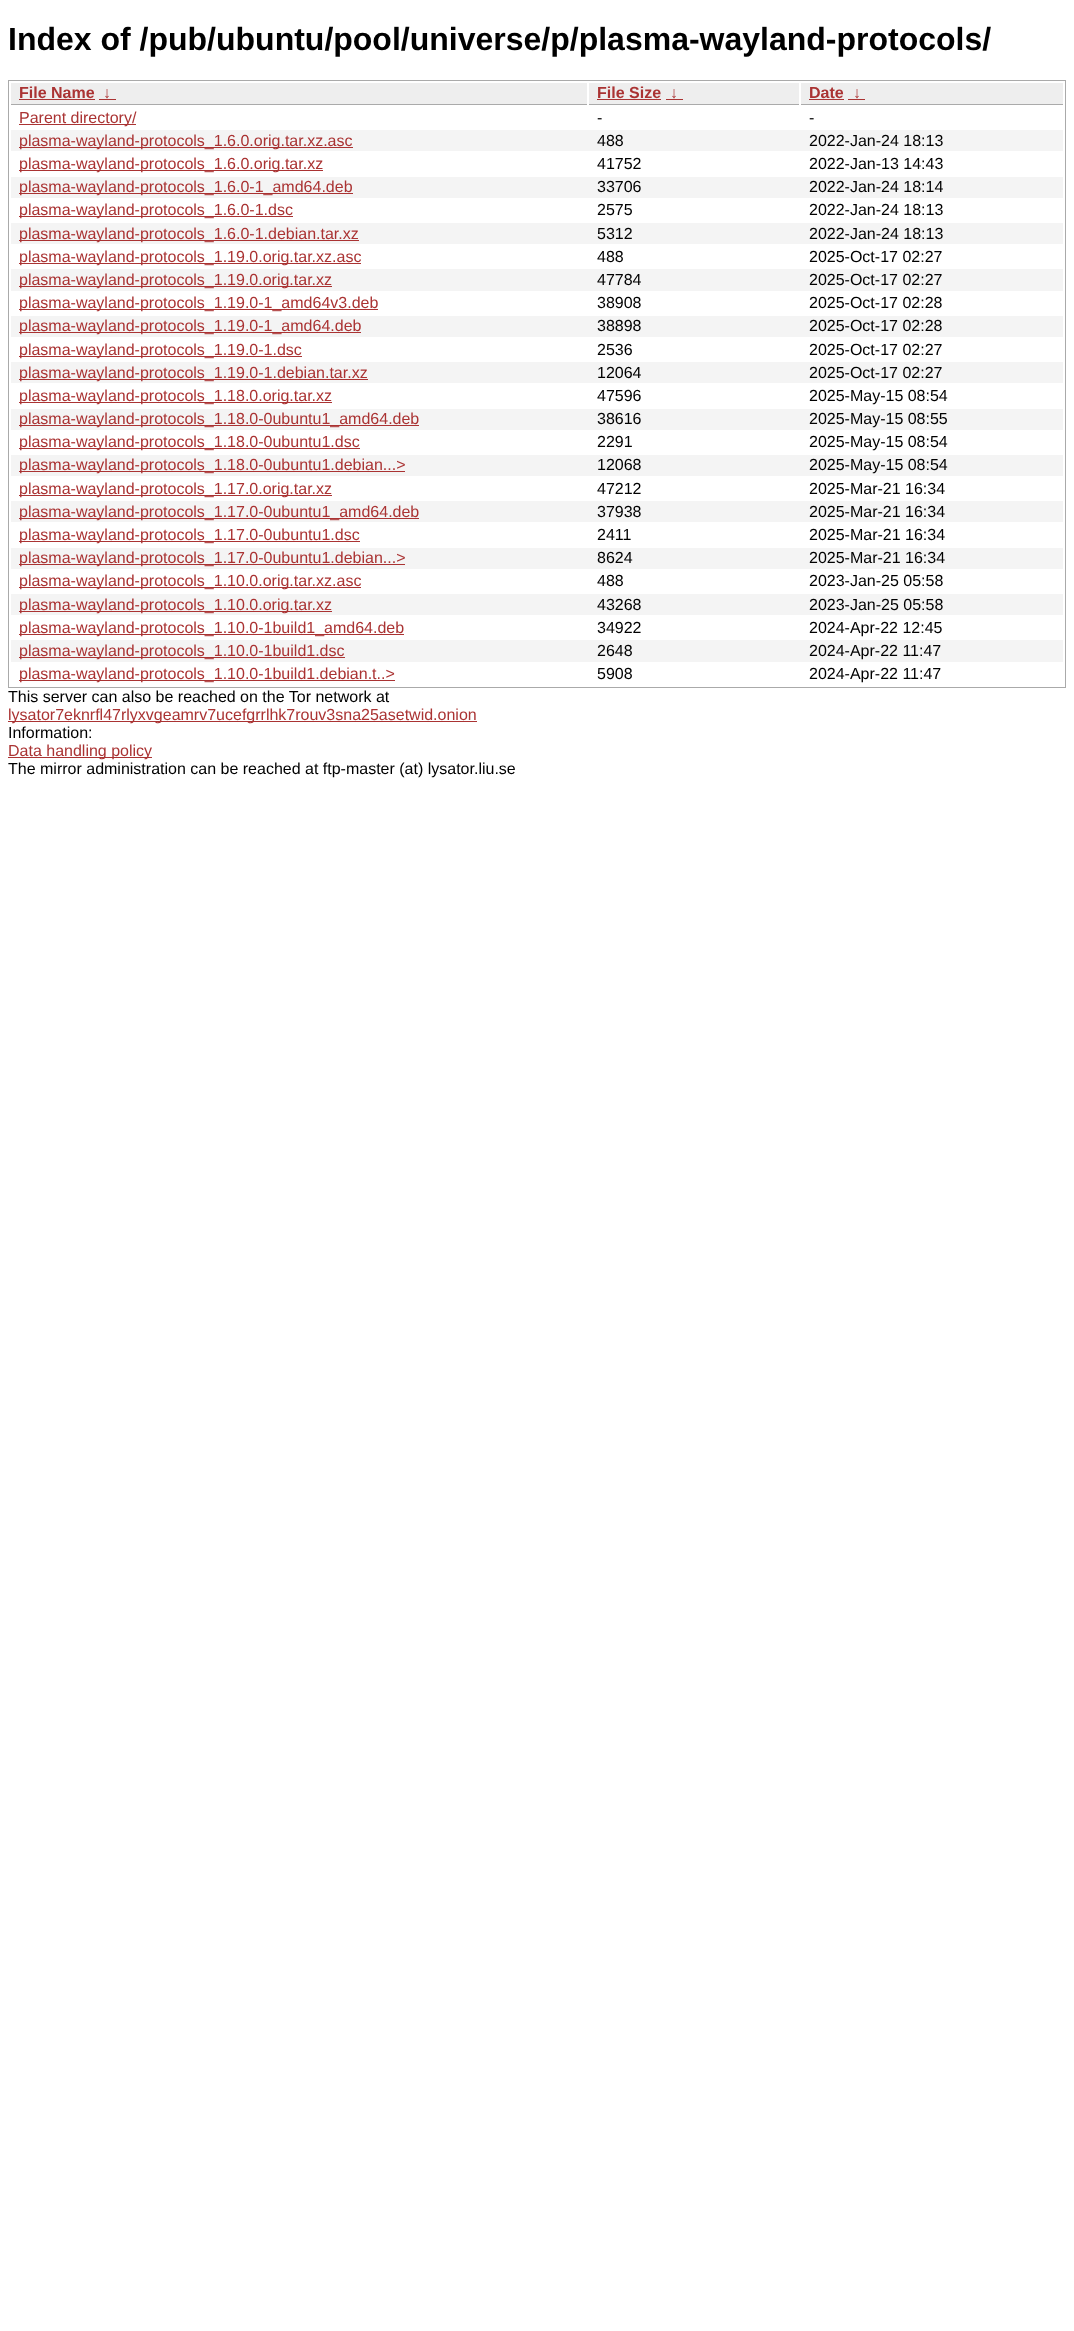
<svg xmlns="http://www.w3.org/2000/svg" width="1074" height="2331">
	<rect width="100%" height="100%" fill="#FFFFFF" />
	<text x="8" y="50" font-family="Liberation Sans" font-size="32" font-weight="700" fill="#000000">Index of /pub/ubuntu/pool/universe/p/plasma-wayland-protocols/</text>
	<rect x="8.5" y="80.5" width="1057" height="607" fill="none" stroke="#AAAAAA" />
	<rect x="11" y="83" width="576" height="21" fill="#EEEEEE" />
	<rect x="11" y="104" width="576" height="1" fill="#AAAAAA" />
	<text x="19" y="98" font-family="Liberation Sans" font-size="16" font-weight="700" fill="#AA3333">File Name</text>
	<rect x="19" y="99" width="76" height="1" fill="#AA3333" />
	<text x="103" y="98" font-family="Liberation Sans" font-size="16" font-weight="700" fill="#AA3333">↓</text>
	<rect x="99" y="99" width="17" height="1" fill="#AA3333" />
	<rect x="589" y="83" width="210" height="21" fill="#EEEEEE" />
	<rect x="589" y="104" width="210" height="1" fill="#AAAAAA" />
	<text x="597" y="98" font-family="Liberation Sans" font-size="16" font-weight="700" fill="#AA3333">File Size</text>
	<rect x="597" y="99" width="64" height="1" fill="#AA3333" />
	<text x="670" y="98" font-family="Liberation Sans" font-size="16" font-weight="700" fill="#AA3333">↓</text>
	<rect x="666" y="99" width="17" height="1" fill="#AA3333" />
	<rect x="801" y="83" width="262" height="21" fill="#EEEEEE" />
	<rect x="801" y="104" width="262" height="1" fill="#AAAAAA" />
	<text x="809" y="98" font-family="Liberation Sans" font-size="16" font-weight="700" fill="#AA3333">Date</text>
	<rect x="809" y="99" width="35" height="1" fill="#AA3333" />
	<text x="853" y="98" font-family="Liberation Sans" font-size="16" font-weight="700" fill="#AA3333">↓</text>
	<rect x="848" y="99" width="17" height="1" fill="#AA3333" />
	<rect x="19" y="124" width="117" height="1" fill="#AA3333" />
	<text x="19" y="123" font-family="Liberation Sans" font-size="16" fill="#AA3333">Parent directory/</text>
	<g font-family="Liberation Sans" font-size="16" fill="#000000">
		<text x="597" y="123">-</text>
		<text x="809" y="123">-</text>
	</g>
	<rect x="11" y="130" width="1052" height="21" fill="#F4F4F4" />
	<rect x="19" y="147" width="334" height="1" fill="#AA3333" />
	<text x="19" y="146" font-family="Liberation Sans" font-size="16" fill="#AA3333">plasma-wayland-protocols_1.6.0.orig.tar.xz.asc</text>
	<g font-family="Liberation Sans" font-size="16" fill="#000000">
		<text x="597" y="146">488</text>
		<text x="809" y="146">2022-Jan-24 18:13</text>
	</g>
	<rect x="19" y="170" width="304" height="1" fill="#AA3333" />
	<text x="19" y="169" font-family="Liberation Sans" font-size="16" fill="#AA3333">plasma-wayland-protocols_1.6.0.orig.tar.xz</text>
	<g font-family="Liberation Sans" font-size="16" fill="#000000">
		<text x="597" y="169">41752</text>
		<text x="809" y="169">2022-Jan-13 14:43</text>
	</g>
	<rect x="11" y="177" width="1052" height="21" fill="#F4F4F4" />
	<rect x="19" y="193" width="334" height="1" fill="#AA3333" />
	<text x="19" y="192" font-family="Liberation Sans" font-size="16" fill="#AA3333">plasma-wayland-protocols_1.6.0-1_amd64.deb</text>
	<g font-family="Liberation Sans" font-size="16" fill="#000000">
		<text x="597" y="192">33706</text>
		<text x="809" y="192">2022-Jan-24 18:14</text>
	</g>
	<rect x="19" y="216" width="274" height="1" fill="#AA3333" />
	<text x="19" y="215" font-family="Liberation Sans" font-size="16" fill="#AA3333">plasma-wayland-protocols_1.6.0-1.dsc</text>
	<g font-family="Liberation Sans" font-size="16" fill="#000000">
		<text x="597" y="215">2575</text>
		<text x="809" y="215">2022-Jan-24 18:13</text>
	</g>
	<rect x="11" y="223" width="1052" height="21" fill="#F4F4F4" />
	<rect x="19" y="240" width="340" height="1" fill="#AA3333" />
	<text x="19" y="239" font-family="Liberation Sans" font-size="16" fill="#AA3333">plasma-wayland-protocols_1.6.0-1.debian.tar.xz</text>
	<g font-family="Liberation Sans" font-size="16" fill="#000000">
		<text x="597" y="239">5312</text>
		<text x="809" y="239">2022-Jan-24 18:13</text>
	</g>
	<rect x="19" y="263" width="342" height="1" fill="#AA3333" />
	<text x="19" y="262" font-family="Liberation Sans" font-size="16" fill="#AA3333">plasma-wayland-protocols_1.19.0.orig.tar.xz.asc</text>
	<g font-family="Liberation Sans" font-size="16" fill="#000000">
		<text x="597" y="262">488</text>
		<text x="809" y="262">2025-Oct-17 02:27</text>
	</g>
	<rect x="11" y="269" width="1052" height="22" fill="#F4F4F4" />
	<rect x="19" y="286" width="313" height="1" fill="#AA3333" />
	<text x="19" y="285" font-family="Liberation Sans" font-size="16" fill="#AA3333">plasma-wayland-protocols_1.19.0.orig.tar.xz</text>
	<g font-family="Liberation Sans" font-size="16" fill="#000000">
		<text x="597" y="285">47784</text>
		<text x="809" y="285">2025-Oct-17 02:27</text>
	</g>
	<rect x="19" y="309" width="359" height="1" fill="#AA3333" />
	<text x="19" y="308" font-family="Liberation Sans" font-size="16" fill="#AA3333">plasma-wayland-protocols_1.19.0-1_amd64v3.deb</text>
	<g font-family="Liberation Sans" font-size="16" fill="#000000">
		<text x="597" y="308">38908</text>
		<text x="809" y="308">2025-Oct-17 02:28</text>
	</g>
	<rect x="11" y="316" width="1052" height="21" fill="#F4F4F4" />
	<rect x="19" y="332" width="342" height="1" fill="#AA3333" />
	<text x="19" y="331" font-family="Liberation Sans" font-size="16" fill="#AA3333">plasma-wayland-protocols_1.19.0-1_amd64.deb</text>
	<g font-family="Liberation Sans" font-size="16" fill="#000000">
		<text x="597" y="331">38898</text>
		<text x="809" y="331">2025-Oct-17 02:28</text>
	</g>
	<rect x="19" y="356" width="283" height="1" fill="#AA3333" />
	<text x="19" y="355" font-family="Liberation Sans" font-size="16" fill="#AA3333">plasma-wayland-protocols_1.19.0-1.dsc</text>
	<g font-family="Liberation Sans" font-size="16" fill="#000000">
		<text x="597" y="355">2536</text>
		<text x="809" y="355">2025-Oct-17 02:27</text>
	</g>
	<rect x="11" y="362" width="1052" height="21" fill="#F4F4F4" />
	<rect x="19" y="379" width="349" height="1" fill="#AA3333" />
	<text x="19" y="378" font-family="Liberation Sans" font-size="16" fill="#AA3333">plasma-wayland-protocols_1.19.0-1.debian.tar.xz</text>
	<g font-family="Liberation Sans" font-size="16" fill="#000000">
		<text x="597" y="378">12064</text>
		<text x="809" y="378">2025-Oct-17 02:27</text>
	</g>
	<rect x="19" y="402" width="313" height="1" fill="#AA3333" />
	<text x="19" y="401" font-family="Liberation Sans" font-size="16" fill="#AA3333">plasma-wayland-protocols_1.18.0.orig.tar.xz</text>
	<g font-family="Liberation Sans" font-size="16" fill="#000000">
		<text x="597" y="401">47596</text>
		<text x="809" y="401">2025-May-15 08:54</text>
	</g>
	<rect x="11" y="409" width="1052" height="21" fill="#F4F4F4" />
	<rect x="19" y="425" width="400" height="1" fill="#AA3333" />
	<text x="19" y="424" font-family="Liberation Sans" font-size="16" fill="#AA3333">plasma-wayland-protocols_1.18.0-0ubuntu1_amd64.deb</text>
	<g font-family="Liberation Sans" font-size="16" fill="#000000">
		<text x="597" y="424">38616</text>
		<text x="809" y="424">2025-May-15 08:55</text>
	</g>
	<rect x="19" y="448" width="341" height="1" fill="#AA3333" />
	<text x="19" y="447" font-family="Liberation Sans" font-size="16" fill="#AA3333">plasma-wayland-protocols_1.18.0-0ubuntu1.dsc</text>
	<g font-family="Liberation Sans" font-size="16" fill="#000000">
		<text x="597" y="447">2291</text>
		<text x="809" y="447">2025-May-15 08:54</text>
	</g>
	<rect x="11" y="455" width="1052" height="21" fill="#F4F4F4" />
	<rect x="19" y="471" width="386" height="1" fill="#AA3333" />
	<text x="19" y="470" font-family="Liberation Sans" font-size="16" fill="#AA3333">plasma-wayland-protocols_1.18.0-0ubuntu1.debian...&gt;</text>
	<g font-family="Liberation Sans" font-size="16" fill="#000000">
		<text x="597" y="470">12068</text>
		<text x="809" y="470">2025-May-15 08:54</text>
	</g>
	<rect x="19" y="495" width="313" height="1" fill="#AA3333" />
	<text x="19" y="494" font-family="Liberation Sans" font-size="16" fill="#AA3333">plasma-wayland-protocols_1.17.0.orig.tar.xz</text>
	<g font-family="Liberation Sans" font-size="16" fill="#000000">
		<text x="597" y="494">47212</text>
		<text x="809" y="494">2025-Mar-21 16:34</text>
	</g>
	<rect x="11" y="501" width="1052" height="21" fill="#F4F4F4" />
	<rect x="19" y="518" width="400" height="1" fill="#AA3333" />
	<text x="19" y="517" font-family="Liberation Sans" font-size="16" fill="#AA3333">plasma-wayland-protocols_1.17.0-0ubuntu1_amd64.deb</text>
	<g font-family="Liberation Sans" font-size="16" fill="#000000">
		<text x="597" y="517">37938</text>
		<text x="809" y="517">2025-Mar-21 16:34</text>
	</g>
	<rect x="19" y="541" width="341" height="1" fill="#AA3333" />
	<text x="19" y="540" font-family="Liberation Sans" font-size="16" fill="#AA3333">plasma-wayland-protocols_1.17.0-0ubuntu1.dsc</text>
	<g font-family="Liberation Sans" font-size="16" fill="#000000">
		<text x="597" y="540">2411</text>
		<text x="809" y="540">2025-Mar-21 16:34</text>
	</g>
	<rect x="11" y="548" width="1052" height="21" fill="#F4F4F4" />
	<rect x="19" y="564" width="386" height="1" fill="#AA3333" />
	<text x="19" y="563" font-family="Liberation Sans" font-size="16" fill="#AA3333">plasma-wayland-protocols_1.17.0-0ubuntu1.debian...&gt;</text>
	<g font-family="Liberation Sans" font-size="16" fill="#000000">
		<text x="597" y="563">8624</text>
		<text x="809" y="563">2025-Mar-21 16:34</text>
	</g>
	<rect x="19" y="587" width="342" height="1" fill="#AA3333" />
	<text x="19" y="586" font-family="Liberation Sans" font-size="16" fill="#AA3333">plasma-wayland-protocols_1.10.0.orig.tar.xz.asc</text>
	<g font-family="Liberation Sans" font-size="16" fill="#000000">
		<text x="597" y="586">488</text>
		<text x="809" y="586">2023-Jan-25 05:58</text>
	</g>
	<rect x="11" y="594" width="1052" height="21" fill="#F4F4F4" />
	<rect x="19" y="611" width="313" height="1" fill="#AA3333" />
	<text x="19" y="610" font-family="Liberation Sans" font-size="16" fill="#AA3333">plasma-wayland-protocols_1.10.0.orig.tar.xz</text>
	<g font-family="Liberation Sans" font-size="16" fill="#000000">
		<text x="597" y="610">43268</text>
		<text x="809" y="610">2023-Jan-25 05:58</text>
	</g>
	<rect x="19" y="634" width="385" height="1" fill="#AA3333" />
	<text x="19" y="633" font-family="Liberation Sans" font-size="16" fill="#AA3333">plasma-wayland-protocols_1.10.0-1build1_amd64.deb</text>
	<g font-family="Liberation Sans" font-size="16" fill="#000000">
		<text x="597" y="633">34922</text>
		<text x="809" y="633">2024-Apr-22 12:45</text>
	</g>
	<rect x="11" y="640" width="1052" height="22" fill="#F4F4F4" />
	<rect x="19" y="657" width="326" height="1" fill="#AA3333" />
	<text x="19" y="656" font-family="Liberation Sans" font-size="16" fill="#AA3333">plasma-wayland-protocols_1.10.0-1build1.dsc</text>
	<g font-family="Liberation Sans" font-size="16" fill="#000000">
		<text x="597" y="656">2648</text>
		<text x="809" y="656">2024-Apr-22 11:47</text>
	</g>
	<rect x="19" y="680" width="376" height="1" fill="#AA3333" />
	<text x="19" y="679" font-family="Liberation Sans" font-size="16" fill="#AA3333">plasma-wayland-protocols_1.10.0-1build1.debian.t..&gt;</text>
	<g font-family="Liberation Sans" font-size="16" fill="#000000">
		<text x="597" y="679">5908</text>
		<text x="809" y="679">2024-Apr-22 11:47</text>
		<text x="8" y="702">This server can also be reached on the Tor network at</text>
	</g>
	<rect x="8" y="721" width="469" height="1" fill="#AA3333" />
	<text x="8" y="720" font-family="Liberation Sans" font-size="16" fill="#AA3333">lysator7eknrfl47rlyxvgeamrv7ucefgrrlhk7rouv3sna25asetwid.onion</text>
	<text x="8" y="738" font-family="Liberation Sans" font-size="16" fill="#000000">Information:</text>
	<rect x="8" y="757" width="144" height="1" fill="#AA3333" />
	<text x="8" y="756" font-family="Liberation Sans" font-size="16" fill="#AA3333">Data handling policy</text>
	<text x="8" y="774" font-family="Liberation Sans" font-size="16" fill="#000000">The mirror administration can be reached at ftp-master (at) lysator.liu.se</text>
</svg>
